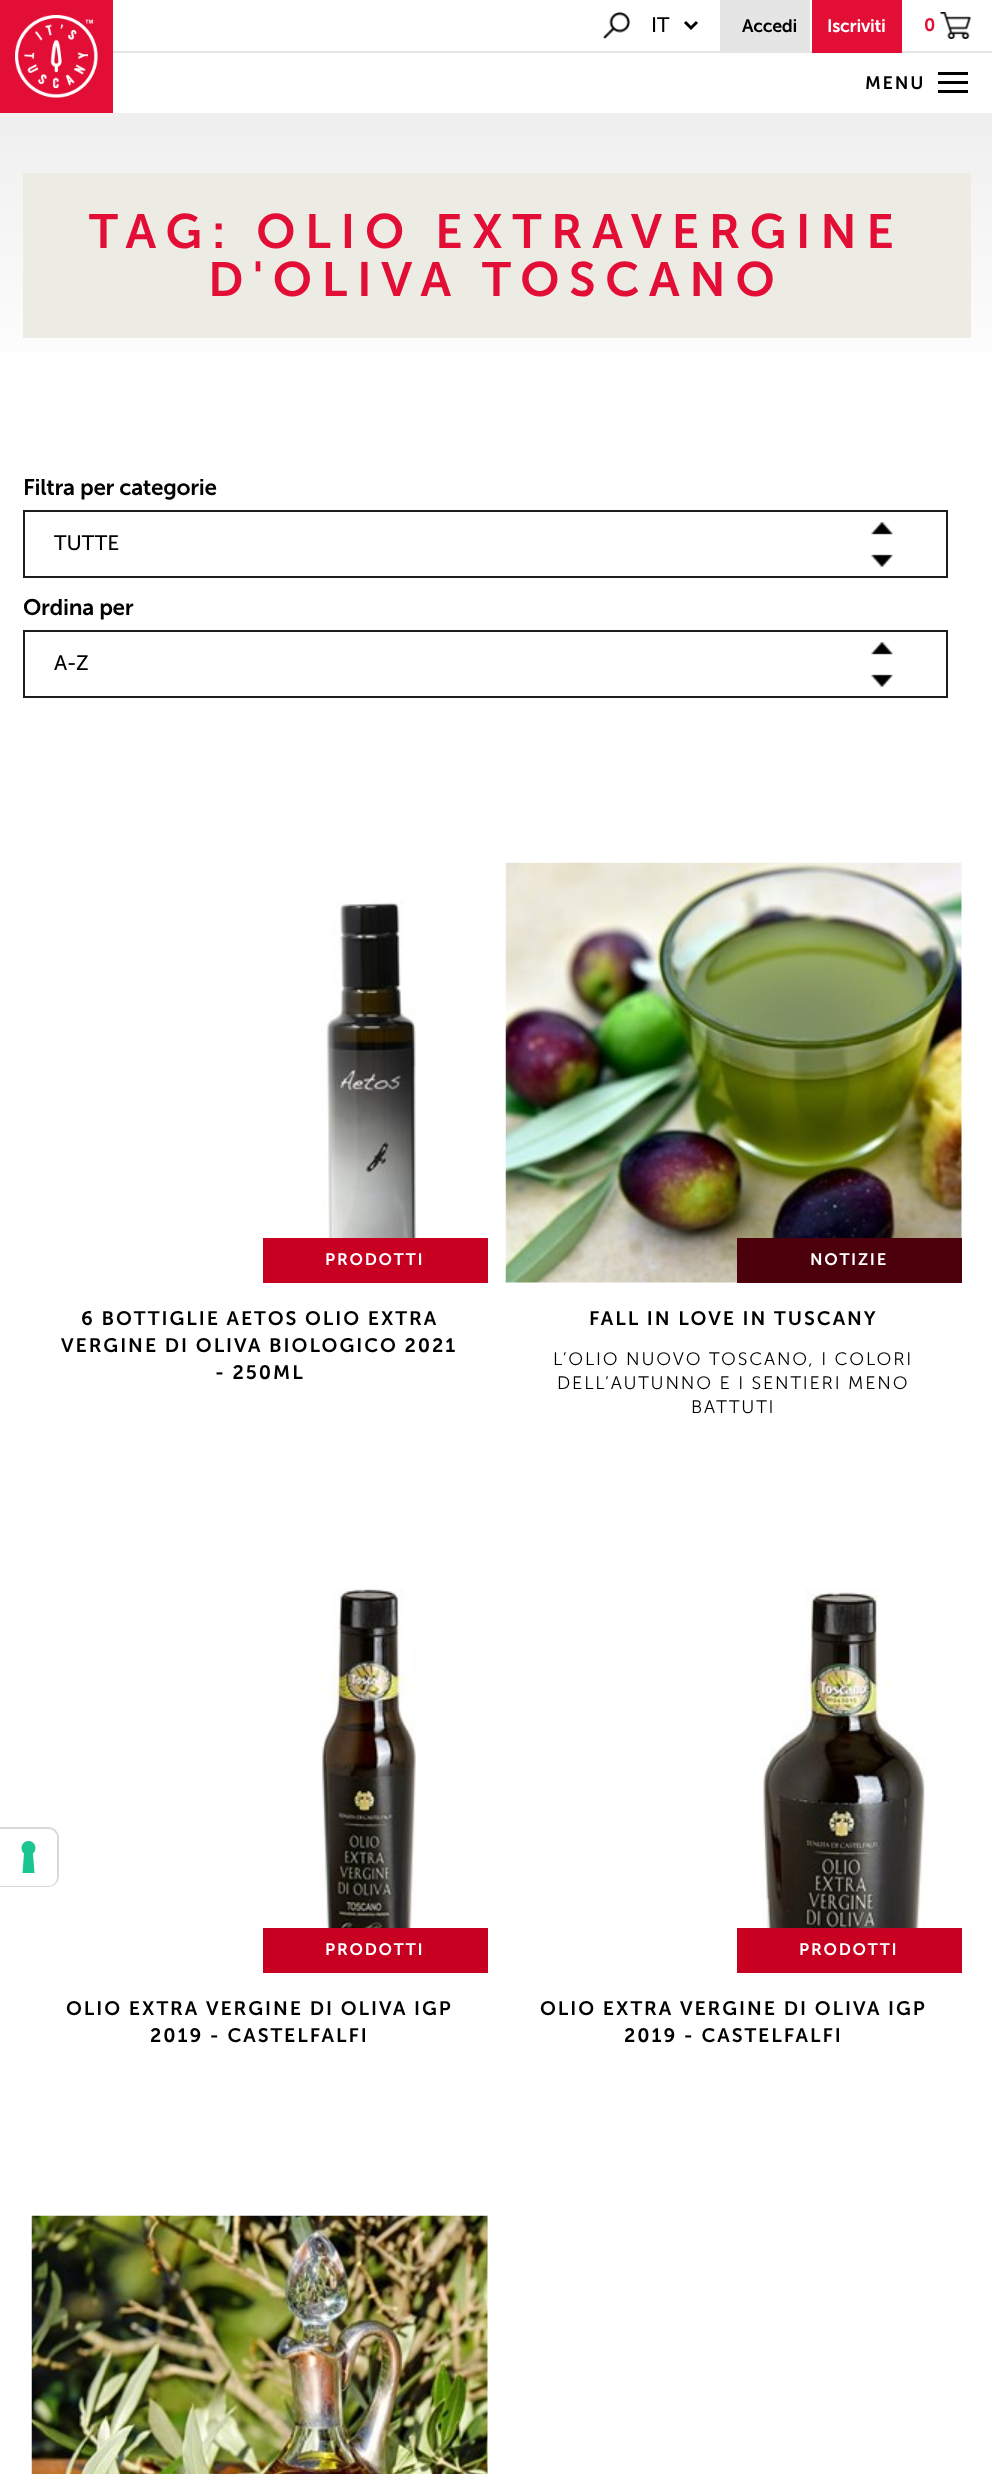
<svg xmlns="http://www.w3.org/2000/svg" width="992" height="2474">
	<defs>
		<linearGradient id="g1" gradientUnits="userSpaceOnUse" x1="497" y1="112" x2="497" y2="398"><stop offset="0" stop-color="#EFEFEF" /><stop offset="1" stop-color="#FFFFFF" /></linearGradient>
	</defs>
	<rect width="100%" height="100%" fill="#FFFFFF" />
	<rect x="0" y="0" width="113" height="113" fill="#E20E35" />
	<image x="15" y="15" width="83" height="83" href="assets/img1.png" />
	<rect x="113" y="51" width="879" height="2" fill="#E5E5E5" />
	<image x="603" y="12" width="27" height="27" href="assets/img2.png" />
	<path d="M685 22L691 28L697 22" fill="none" stroke="#000000" stroke-width="3" />
	<text x="651" y="32" font-family="'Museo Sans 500'" font-size="21" fill="#000000">IT</text>
	<rect x="720" y="0" width="90" height="51" fill="#E5E5E5" />
	<text x="742" y="32" font-family="'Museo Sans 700'" font-size="18" font-weight="600" letter-spacing="-0.3" fill="#000000">Accedi</text>
	<rect x="812" y="0" width="90" height="53" fill="#E20E35" />
	<text x="827" y="32" font-family="'Museo Sans 700'" font-size="18" font-weight="600" letter-spacing="-0.3" fill="#FFFFFF">Iscriviti</text>
	<text x="924" y="31" font-family="'Museo Sans 700'" font-size="18" font-weight="600" letter-spacing="-0.3" fill="#E20E35">0</text>
	<image x="940" y="12" width="31" height="27" href="assets/img3.png" />
	<rect x="938" y="72" width="30" height="3" fill="#000000" />
	<text x="865" y="89" font-family="'Museo Sans 700'" font-size="18" font-weight="600" letter-spacing="1.8" fill="#000000">MENU</text>
	<rect x="938" y="81" width="30" height="3" fill="#000000" />
	<rect x="938" y="90" width="30" height="3" fill="#000000" />
	<rect x="0" y="113" width="992" height="240" fill="url(#g1)" />
	<rect x="23" y="173" width="948" height="165" fill="#ECEBE4" />
	<g font-family="'Museo Sans 700'" font-size="48" font-weight="600" letter-spacing="9.6" fill="#E20E35">
		<text x="89" y="248">TAG: OLIO EXTRAVERGINE</text>
		<text x="208" y="296">D'OLIVA TOSCANO</text>
	</g>
	<text x="23" y="495" font-family="'Museo Sans 700'" font-size="22.5" font-weight="600" letter-spacing="-0.3" fill="#000000">Filtra per categorie</text>
	<image x="871" y="522" width="22" height="45" href="assets/img4.png" />
	<rect x="24" y="511" width="923" height="66" fill="none" stroke="#1D1D1B" stroke-width="2" />
	<text x="54" y="550" font-family="'Museo Sans 500'" font-size="21" fill="#000000">TUTTE</text>
	<text x="23" y="615" font-family="'Museo Sans 700'" font-size="22.5" font-weight="600" letter-spacing="-0.3" fill="#000000">Ordina per</text>
	<image x="871" y="642" width="22" height="45" href="assets/img4.png" />
	<rect x="24" y="631" width="923" height="66" fill="none" stroke="#1D1D1B" stroke-width="2" />
	<text x="54" y="670" font-family="'Museo Sans 500'" font-size="21" fill="#000000">A-Z</text>
	<image x="321" y="899" width="97" height="339" href="assets/img5.png" />
	<rect x="263" y="1238" width="225" height="45" fill="#C80021" />
	<text x="325" y="1265" font-family="'Museo Sans 700'" font-size="16.5" font-weight="600" letter-spacing="1.75" fill="#FFFFFF">PRODOTTI</text>
	<g font-family="'Museo Sans 700'" font-size="19.5" font-weight="600" letter-spacing="1.95" fill="#000000">
		<text x="81" y="1325">6 BOTTIGLIE AETOS OLIO EXTRA</text>
		<text x="61" y="1352">VERGINE DI OLIVA BIOLOGICO 2021</text>
		<text x="215" y="1379">- 250ML</text>
	</g>
	<image x="505" y="862" width="457" height="421" href="assets/img6.png" />
	<rect x="737" y="1238" width="225" height="45" fill="#4B000C" />
	<text x="810" y="1265" font-family="'Museo Sans 700'" font-size="16.5" font-weight="600" letter-spacing="1.75" fill="#FFFFFF">NOTIZIE</text>
	<text x="589" y="1325" font-family="'Museo Sans 700'" font-size="19.5" font-weight="600" letter-spacing="1.95" fill="#000000">FALL IN LOVE IN TUSCANY</text>
	<g font-family="'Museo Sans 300'" font-size="18" font-weight="300" letter-spacing="1.8" fill="#000000">
		<text x="553" y="1365">L’OLIO NUOVO TOSCANO, I COLORI</text>
		<text x="557" y="1389">DELL’AUTUNNO E I SENTIERI MENO</text>
		<text x="691" y="1413">BATTUTI</text>
	</g>
	<image x="320" y="1589" width="96" height="339" href="assets/img7.png" />
	<rect x="263" y="1928" width="225" height="45" fill="#C80021" />
	<text x="325" y="1955" font-family="'Museo Sans 700'" font-size="16.5" font-weight="600" letter-spacing="1.75" fill="#FFFFFF">PRODOTTI</text>
	<g font-family="'Museo Sans 700'" font-size="19.5" font-weight="600" letter-spacing="1.95" fill="#000000">
		<text x="66" y="2015">OLIO EXTRA VERGINE DI OLIVA IGP</text>
		<text x="150" y="2042">2019 - CASTELFALFI</text>
	</g>
	<image x="762" y="1589" width="164" height="339" href="assets/img8.png" />
	<rect x="737" y="1928" width="225" height="45" fill="#C80021" />
	<text x="799" y="1955" font-family="'Museo Sans 700'" font-size="16.5" font-weight="600" letter-spacing="1.75" fill="#FFFFFF">PRODOTTI</text>
	<g font-family="'Museo Sans 700'" font-size="19.5" font-weight="600" letter-spacing="1.95" fill="#000000">
		<text x="540" y="2015">OLIO EXTRA VERGINE DI OLIVA IGP</text>
		<text x="624" y="2042">2019 - CASTELFALFI</text>
	</g>
	<image x="31" y="2215" width="457" height="259" href="assets/img9.png" />
	<path d="M0 1828H48C53.5 1828 58 1832.5 58 1838V1876C58 1881.5 53.5 1886 48 1886H0Z" fill="none" stroke="#D9D9D9" stroke-width="2" />
	<path d="M0 1829H48C53 1829 57 1833 57 1838V1877C57 1882 53 1886 48 1886H0Z" fill="#FFFFFF" />
	<path d="M28.5 1841C35 1841 38 1849 33 1853.5L34.5 1873H22.5L24 1853.5C19 1849 22 1841 28.5 1841Z" fill="#1CC691" fill-rule="evenodd" />
</svg>
